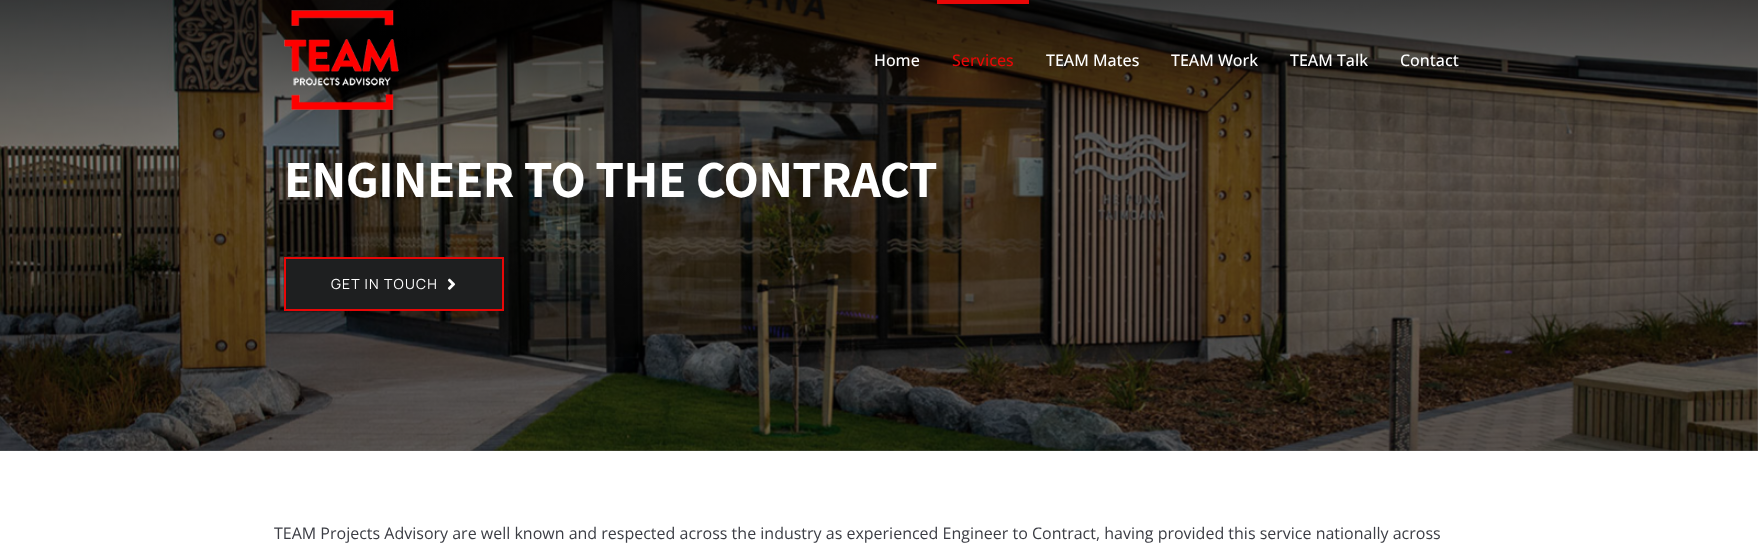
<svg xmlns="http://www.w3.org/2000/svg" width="1758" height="552">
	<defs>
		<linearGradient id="g1" gradientUnits="userSpaceOnUse" x1="879" y1="0" x2="879" y2="451"><stop offset="0" stop-color="#000000" stop-opacity="0.75" /><stop offset="0.33" stop-color="#000000" stop-opacity="0.5" /></linearGradient>
	</defs>
	<rect width="100%" height="100%" fill="#FFFFFF" />
	<image x="0" y="0" width="1758" height="451" href="assets/img2.png" />
	<rect x="0" y="0" width="1758" height="451" fill="url(#g1)" />
	<image x="284" y="10" width="115" height="100" href="assets/img1.png" />
	<text x="874" y="66" font-family="Open Sans" font-size="16" font-weight="500" fill="#FFFFFF">Home</text>
	<rect x="937" y="0" width="92" height="4" fill="#E80707" />
	<text x="952" y="66" font-family="Open Sans" font-size="16" font-weight="500" fill="#E80707">Services</text>
	<g font-family="Open Sans" font-size="16" font-weight="500" fill="#FFFFFF">
		<text x="1046" y="66">TEAM Mates</text>
		<text x="1171" y="66">TEAM Work</text>
		<text x="1290" y="66">TEAM Talk</text>
		<text x="1400" y="66">Contact</text>
	</g>
	<text x="284" y="197" font-family="Assistant" font-size="52" font-weight="700" letter-spacing="-0.5" fill="#FFFFFF">ENGINEER TO THE CONTRACT</text>
	<rect x="285" y="258" width="218" height="52" fill="#1E1F20" stroke="#E80707" stroke-width="2" />
	<text x="331" y="289" font-family="Manrope" font-size="14" letter-spacing="1.25" fill="#FFFFFF">GET IN TOUCH</text>
	<image x="447" y="278" width="9" height="12" href="assets/img3.png" />
	<text x="274" y="539" font-family="Open Sans" font-size="16" fill="#3B3D44">TEAM Projects Advisory are well known and respected across the industry as experienced Engineer to Contract, having provided this service nationally across</text>
</svg>
